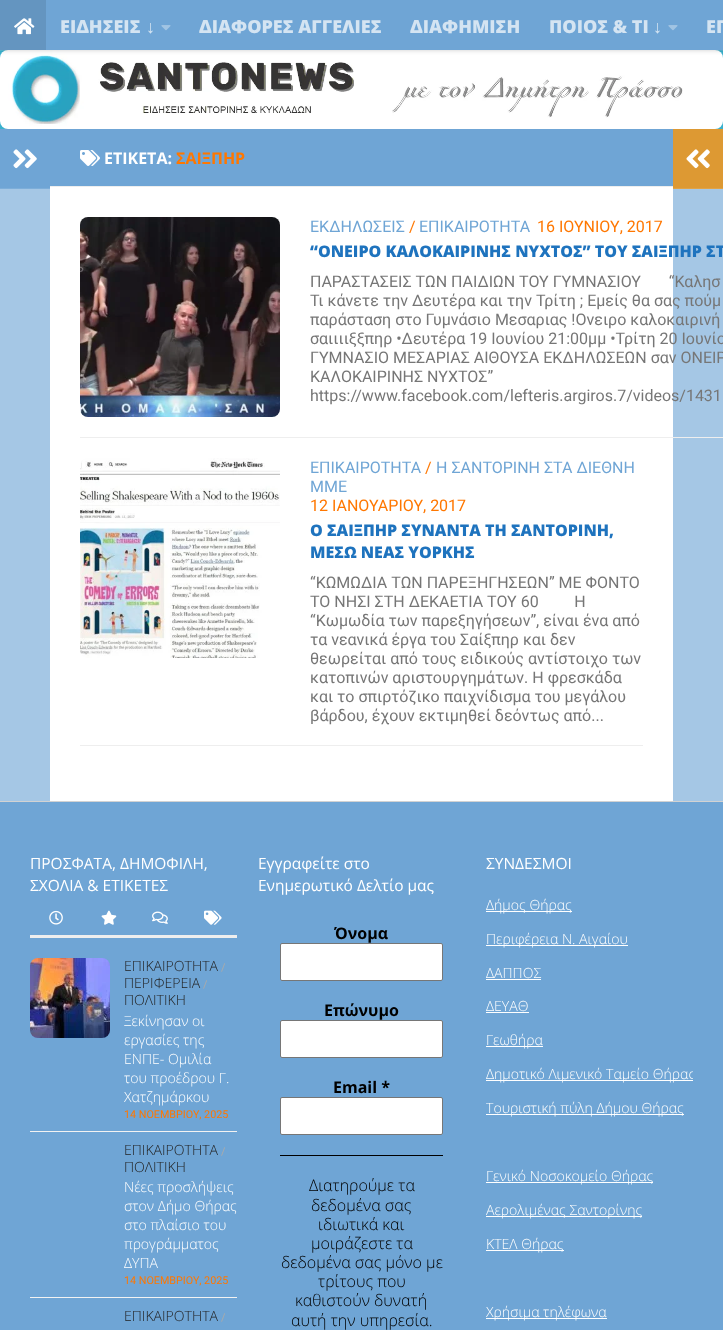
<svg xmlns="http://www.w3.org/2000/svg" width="723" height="1330">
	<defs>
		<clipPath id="clip1"><rect x="486" y="852" width="207" height="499" /></clipPath>
	</defs>
	<rect width="100%" height="100%" fill="#39B1CE" />
	<rect x="0" y="801" width="723" height="1" fill="#EAEAEA" />
	<rect x="0" y="130" width="723" height="672" fill="#000000" fill-opacity="0.1" filter="blur(0.5px)" />
	<image x="0" y="50" width="723" height="79" href="assets/img3.png" />
	<rect x="0" y="50" width="723" height="1" fill="#FFFFFF" fill-opacity="0.15" />
	<rect x="0" y="0" width="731" height="50" fill="#000000" fill-opacity="0.2" filter="blur(2.5px)" />
	<rect x="46" y="0" width="677" height="50" fill="#6FA5D5" />
	<rect x="0" y="0" width="46" height="50" fill="#6495C0" />
	<image x="14" y="18" width="21" height="17" href="assets/img1.png" />
	<text x="60" y="33" font-family="Open Sans" font-size="18" font-weight="800" fill="#D4E4F2">ΕΙΔΗΣΕΙΣ</text>
	<text x="146" y="33" font-family="Liberation Serif" font-size="18" font-weight="700" fill="#D4E4F2">↓</text>
	<image x="161" y="25" width="10" height="6" href="assets/img2.png" />
	<g font-family="Open Sans" font-size="18" font-weight="800" fill="#D4E4F2">
		<text x="199" y="33">ΔΙΑΦΟΡΕΣ ΑΓΓΕΛΙΕΣ</text>
		<text x="410" y="33">ΔΙΑΦΗΜΙΣΗ</text>
		<text x="549" y="33">ΠΟΙΟΣ &amp; ΤΙ</text>
	</g>
	<text x="653" y="33" font-family="Liberation Serif" font-size="18" font-weight="700" fill="#D4E4F2">↓</text>
	<image x="668" y="25" width="10" height="6" href="assets/img2.png" />
	<text x="706" y="33" font-family="Open Sans" font-size="18" font-weight="800" fill="#D4E4F2">ΕΠ</text>
	<rect x="50" y="187" width="623" height="614" fill="#FFFFFF" />
	<rect x="0" y="189" width="50" height="612" fill="#A5C7E5" />
	<rect x="0" y="129" width="50" height="59" fill="#6FA5D5" />
	<rect x="0" y="188" width="50" height="1" fill="#7DAED9" />
	<image x="13" y="149" width="24" height="20" href="assets/img4.png" />
	<rect x="673" y="129" width="50" height="59" fill="#DD9933" />
	<rect x="673" y="188" width="50" height="1" fill="#E0A347" />
	<image x="686" y="149" width="24" height="20" href="assets/img5.png" />
	<rect x="50" y="129" width="623" height="57" fill="#6FA5D5" />
	<rect x="50" y="186" width="623" height="1" fill="#EEEEEE" />
	<image x="80" y="150" width="20" height="16" href="assets/img6.png" />
	<text x="104" y="164" font-family="Open Sans" font-size="16" font-weight="700" fill="#FFFFFF">ΕΤΙΚΕΤΑ:</text>
	<text x="176" y="164" font-family="Open Sans" font-size="16" font-weight="700" fill="#FF7700">ΣΑΙΞΠΗΡ</text>
	<rect x="673" y="189" width="50" height="612" fill="#A5C7E5" />
	<rect x="80" y="437" width="643" height="1" fill="#EEEEEE" />
	<image x="80" y="217" width="200" height="200" href="assets/img7.png" />
	<text x="310" y="232" font-family="Roboto" font-size="16" fill="#6FA5D5">ΕΚΔΗΛΩΣΕΙΣ</text>
	<text x="409" y="232" font-family="Roboto" font-size="16" fill="#FF7700">/</text>
	<text x="419" y="232" font-family="Roboto" font-size="16" fill="#6FA5D5">ΕΠΙΚΑΙΡΟΤΗΤΑ</text>
	<text x="537" y="232" font-family="Roboto" font-size="16" fill="#FF7700">16 ΙΟΥΝΙΟΥ, 2017</text>
	<text x="310" y="257" font-family="Open Sans" font-size="16" font-weight="800" fill="#1E73BE">“ΟΝΕΙΡΟ ΚΑΛΟΚΑΙΡΙΝΗΣ ΝΥΧΤΟΣ” ΤΟΥ ΣΑΙΞΠΗΡ ΣΤ</text>
	<g font-family="Roboto" font-size="16" fill="#767676">
		<text x="310" y="287" xml:space="preserve">ΠΑΡΑΣΤΑΣΕΙΣ ΤΩΝ ΠΑΙΔΙΩΝ ΤΟΥ ΓΥΜΝΑΣΙΟΥ       “Καλησ</text>
		<text x="310" y="306">Τι κάνετε την Δευτέρα και την Τρίτη ; Εμείς θα σας πούμ</text>
		<text x="310" y="325">παράσταση στο Γυμνάσιο Μεσαριας !Ονειρο καλοκαιρινή</text>
		<text x="310" y="344">σαιιιιξξπηρ •Δευτέρα 19 Ιουνίου 21:00μμ •Τρίτη 20 Ιουνίο</text>
		<text x="310" y="363">ΓΥΜΝΑΣΙΟ ΜΕΣΑΡΙΑΣ ΑΙΘΟΥΣΑ ΕΚΔΗΛΩΣΕΩΝ σαν ΟΝΕΙΡ</text>
		<text x="310" y="382">ΚΑΛΟΚΑΙΡΙΝΗΣ ΝΥΧΤΟΣ”</text>
		<text x="310" y="401">https://www.facebook.com/lefteris.argiros.7/videos/1431</text>
	</g>
	<rect x="80" y="745" width="563" height="1" fill="#EEEEEE" />
	<image x="80" y="458" width="200" height="200" href="assets/img8.png" />
	<text x="310" y="473" font-family="Roboto" font-size="16" fill="#6FA5D5">ΕΠΙΚΑΙΡΟΤΗΤΑ</text>
	<text x="425" y="473" font-family="Roboto" font-size="16" fill="#FF7700">/</text>
	<g font-family="Roboto" font-size="16" fill="#6FA5D5">
		<text x="436" y="473">Η ΣΑΝΤΟΡΙΝΗ ΣΤΑ ΔΙΕΘΝΗ</text>
		<text x="310" y="492">ΜΜΕ</text>
	</g>
	<text x="310" y="511" font-family="Roboto" font-size="16" fill="#FF7700">12 ΙΑΝΟΥΑΡΙΟΥ, 2017</text>
	<g font-family="Open Sans" font-size="16" font-weight="800" fill="#1E73BE">
		<text x="310" y="536">Ο ΣΑΙΞΠΗΡ ΣΥΝΑΝΤΑ ΤΗ ΣΑΝΤΟΡΙΝΗ,</text>
		<text x="310" y="558">ΜΕΣΩ ΝΕΑΣ ΥΟΡΚΗΣ</text>
	</g>
	<g font-family="Roboto" font-size="16" fill="#767676">
		<text x="310" y="588">“ΚΩΜΩΔΙΑ ΤΩΝ ΠΑΡΕΞΗΓΗΣΕΩΝ” ΜΕ ΦΟΝΤΟ</text>
		<text x="310" y="607" xml:space="preserve">ΤΟ ΝΗΣΙ ΣΤΗ ΔΕΚΑΕΤΙΑ ΤΟΥ 60         Η</text>
		<text x="310" y="626">“Κωμωδία των παρεξηγήσεων”, είναι ένα από</text>
		<text x="310" y="645">τα νεανικά έργα του Σαίξπηρ και δεν</text>
		<text x="310" y="664">θεωρείται από τους ειδικούς αντίστοιχο των</text>
		<text x="310" y="683">κατοπινών αριστουργημάτων. Η φρεσκάδα</text>
		<text x="310" y="702">και το σπιρτόζικο παιχνίδισμα του μεγάλου</text>
		<text x="310" y="721">βάρδου, έχουν εκτιμηθεί δεόντως από...</text>
	</g>
	<rect x="0" y="802" width="723" height="528" fill="#6FA5D5" />
	<g font-family="Open Sans" font-size="15.5" fill="#FFFFFF">
		<text x="30" y="869">ΠΡΟΣΦΑΤΑ, ΔΗΜΟΦΙΛΗ,</text>
		<text x="30" y="891">ΣΧΟΛΙΑ &amp; ΕΤΙΚΕΤΕΣ</text>
	</g>
	<rect x="30" y="935" width="207" height="3" fill="#EEEEEE" />
	<image x="49" y="910" width="14" height="15" href="assets/img9.png" />
	<image x="101" y="910" width="16" height="15" href="assets/img10.png" />
	<image x="152" y="911" width="16" height="13" href="assets/img11.png" />
	<image x="204" y="910" width="18" height="15" href="assets/img12.png" />
	<rect x="30" y="1131" width="207" height="1" fill="#F2F2F2" />
	<image x="30" y="958" width="80" height="80" href="assets/img13.png" />
	<text x="124" y="971" font-family="Open Sans" font-size="14.1" font-weight="300" fill="#222222">ΕΠΙΚΑΙΡΟΤΗΤΑ</text>
	<text x="221" y="971" font-family="Roboto" font-size="10.75" fill="#AAAAAA">/</text>
	<text x="124" y="988" font-family="Open Sans" font-size="14.1" font-weight="300" fill="#222222">ΠΕΡΙΦΕΡΕΙΑ</text>
	<text x="203" y="988" font-family="Roboto" font-size="10.75" fill="#AAAAAA">/</text>
	<text x="124" y="1005" font-family="Open Sans" font-size="14.1" font-weight="300" fill="#222222">ΠΟΛΙΤΙΚΗ</text>
	<g font-family="Open Sans" font-size="14.1" font-weight="300" fill="#FFFFFF">
		<text x="124" y="1026">Ξεκίνησαν οι</text>
		<text x="124" y="1045">εργασίες της</text>
		<text x="124" y="1064">ΕΝΠΕ- Ομιλία</text>
		<text x="124" y="1083">του προέδρου Γ.</text>
		<text x="124" y="1102">Χατζημάρκου</text>
	</g>
	<text x="124" y="1118" font-family="Roboto" font-size="10.75" fill="#FF7700">14 ΝΟΕΜΒΡΙΟΥ, 2025</text>
	<rect x="30" y="1297" width="207" height="1" fill="#F2F2F2" />
	<text x="124" y="1155" font-family="Open Sans" font-size="14.1" font-weight="300" fill="#222222">ΕΠΙΚΑΙΡΟΤΗΤΑ</text>
	<text x="221" y="1155" font-family="Roboto" font-size="10.75" fill="#AAAAAA">/</text>
	<text x="124" y="1172" font-family="Open Sans" font-size="14.1" font-weight="300" fill="#222222">ΠΟΛΙΤΙΚΗ</text>
	<g font-family="Open Sans" font-size="14.1" font-weight="300" fill="#FFFFFF">
		<text x="124" y="1192">Νέες προσλήψεις</text>
		<text x="124" y="1211">στον Δήμο Θήρας</text>
		<text x="124" y="1230">στο πλαίσιο του</text>
		<text x="124" y="1249">προγράμματος</text>
		<text x="124" y="1268">ΔΥΠΑ</text>
	</g>
	<text x="124" y="1284" font-family="Roboto" font-size="10.75" fill="#FF7700">14 ΝΟΕΜΒΡΙΟΥ, 2025</text>
	<text x="124" y="1321" font-family="Open Sans" font-size="14.1" font-weight="300" fill="#222222">ΕΠΙΚΑΙΡΟΤΗΤΑ</text>
	<text x="221" y="1321" font-family="Roboto" font-size="10.75" fill="#AAAAAA">/</text>
	<g font-family="Open Sans" font-size="15.5" fill="#FFFFFF">
		<text x="258" y="869">Εγγραφείτε στο</text>
		<text x="258" y="891">Ενημερωτικό Δελτίο μας</text>
	</g>
	<text x="334" y="939" font-family="Open Sans" font-size="16" font-weight="700" fill="#000000">Όνομα</text>
	<rect x="280.5" y="943.5" width="162" height="37" rx="1.5" fill="#FFFFFF" stroke="#767676" />
	<text x="324" y="1016" font-family="Open Sans" font-size="16" font-weight="700" fill="#000000">Επώνυμο</text>
	<rect x="280.5" y="1020.5" width="162" height="37" rx="1.5" fill="#FFFFFF" stroke="#767676" />
	<text x="333" y="1093" font-family="Open Sans" font-size="16" font-weight="700" fill="#000000">Email *</text>
	<rect x="280.5" y="1097.5" width="162" height="37" rx="1.5" fill="#FFFFFF" stroke="#767676" />
	<rect x="280" y="1155" width="163" height="1" fill="#000000" />
	<g font-family="Open Sans" font-size="16" font-weight="300" fill="#000000">
		<text x="309" y="1191">Διατηρούμε τα</text>
		<text x="311" y="1211">δεδομένα σας</text>
		<text x="318" y="1230">ιδιωτικά και</text>
		<text x="311" y="1249">μοιράζεστε τα</text>
		<text x="281" y="1268">δεδομένα σας μόνο με</text>
		<text x="318" y="1287">τρίτους που</text>
		<text x="295" y="1306">καθιστούν δυνατή</text>
		<text x="291" y="1326">αυτή την υπηρεσία.</text>
	</g>
	<text x="486" y="869" font-family="Open Sans" font-size="15.5" fill="#FFFFFF">ΣΥΝΔΕΣΜΟΙ</text>
	<rect x="486" y="911" width="86" height="1" fill="#FFFFFF" />
	<text x="486" y="910" font-family="Open Sans" font-size="14.1" font-weight="300" fill="#FFFFFF">Δήμος Θήρας</text>
	<rect x="486" y="945" width="142" height="1" fill="#FFFFFF" />
	<g font-family="Open Sans" font-size="14.1" font-weight="300" fill="#FFFFFF">
		<text x="486" y="944">Περιφέρεια Ν. Αιγαίου</text>
		<text x="486" y="978">ΔΑΠΠΟΣ</text>
	</g>
	<rect x="486" y="979" width="55" height="1" fill="#FFFFFF" />
	<text x="486" y="1011" font-family="Open Sans" font-size="14.1" font-weight="300" fill="#FFFFFF">ΔΕΥΑΘ</text>
	<rect x="486" y="1012" width="43" height="1" fill="#FFFFFF" />
	<rect x="486" y="1046" width="57" height="1" fill="#FFFFFF" />
	<text x="486" y="1045" font-family="Open Sans" font-size="14.1" font-weight="300" fill="#FFFFFF">Γεωθήρα</text>
	<rect x="486" y="1080" width="207" height="1" fill="#FFFFFF" />
	<g clip-path="url(#clip1)">
		<text x="486" y="1079" font-family="Open Sans" font-size="14.1" font-weight="300" fill="#FFFFFF">Δημοτικό Λιμενικό Ταμείο Θήρας</text>
	</g>
	<rect x="486" y="1114" width="198" height="1" fill="#FFFFFF" />
	<text x="486" y="1113" font-family="Open Sans" font-size="14.1" font-weight="300" fill="#FFFFFF">Τουριστική πύλη Δήμου Θήρας</text>
	<rect x="486" y="1182" width="167" height="1" fill="#FFFFFF" />
	<text x="486" y="1181" font-family="Open Sans" font-size="14.1" font-weight="300" fill="#FFFFFF">Γενικό Νοσοκομείο Θήρας</text>
	<rect x="486" y="1216" width="156" height="1" fill="#FFFFFF" />
	<text x="486" y="1215" font-family="Open Sans" font-size="14.1" font-weight="300" fill="#FFFFFF">Αερολιμένας Σαντορίνης</text>
	<rect x="486" y="1250" width="78" height="1" fill="#FFFFFF" />
	<text x="486" y="1249" font-family="Open Sans" font-size="14.1" font-weight="300" fill="#FFFFFF">ΚΤΕΛ Θήρας</text>
	<rect x="486" y="1318" width="121" height="1" fill="#FFFFFF" />
	<text x="486" y="1317" font-family="Open Sans" font-size="14.1" font-weight="300" fill="#FFFFFF">Χρήσιμα τηλέφωνα</text>
</svg>
